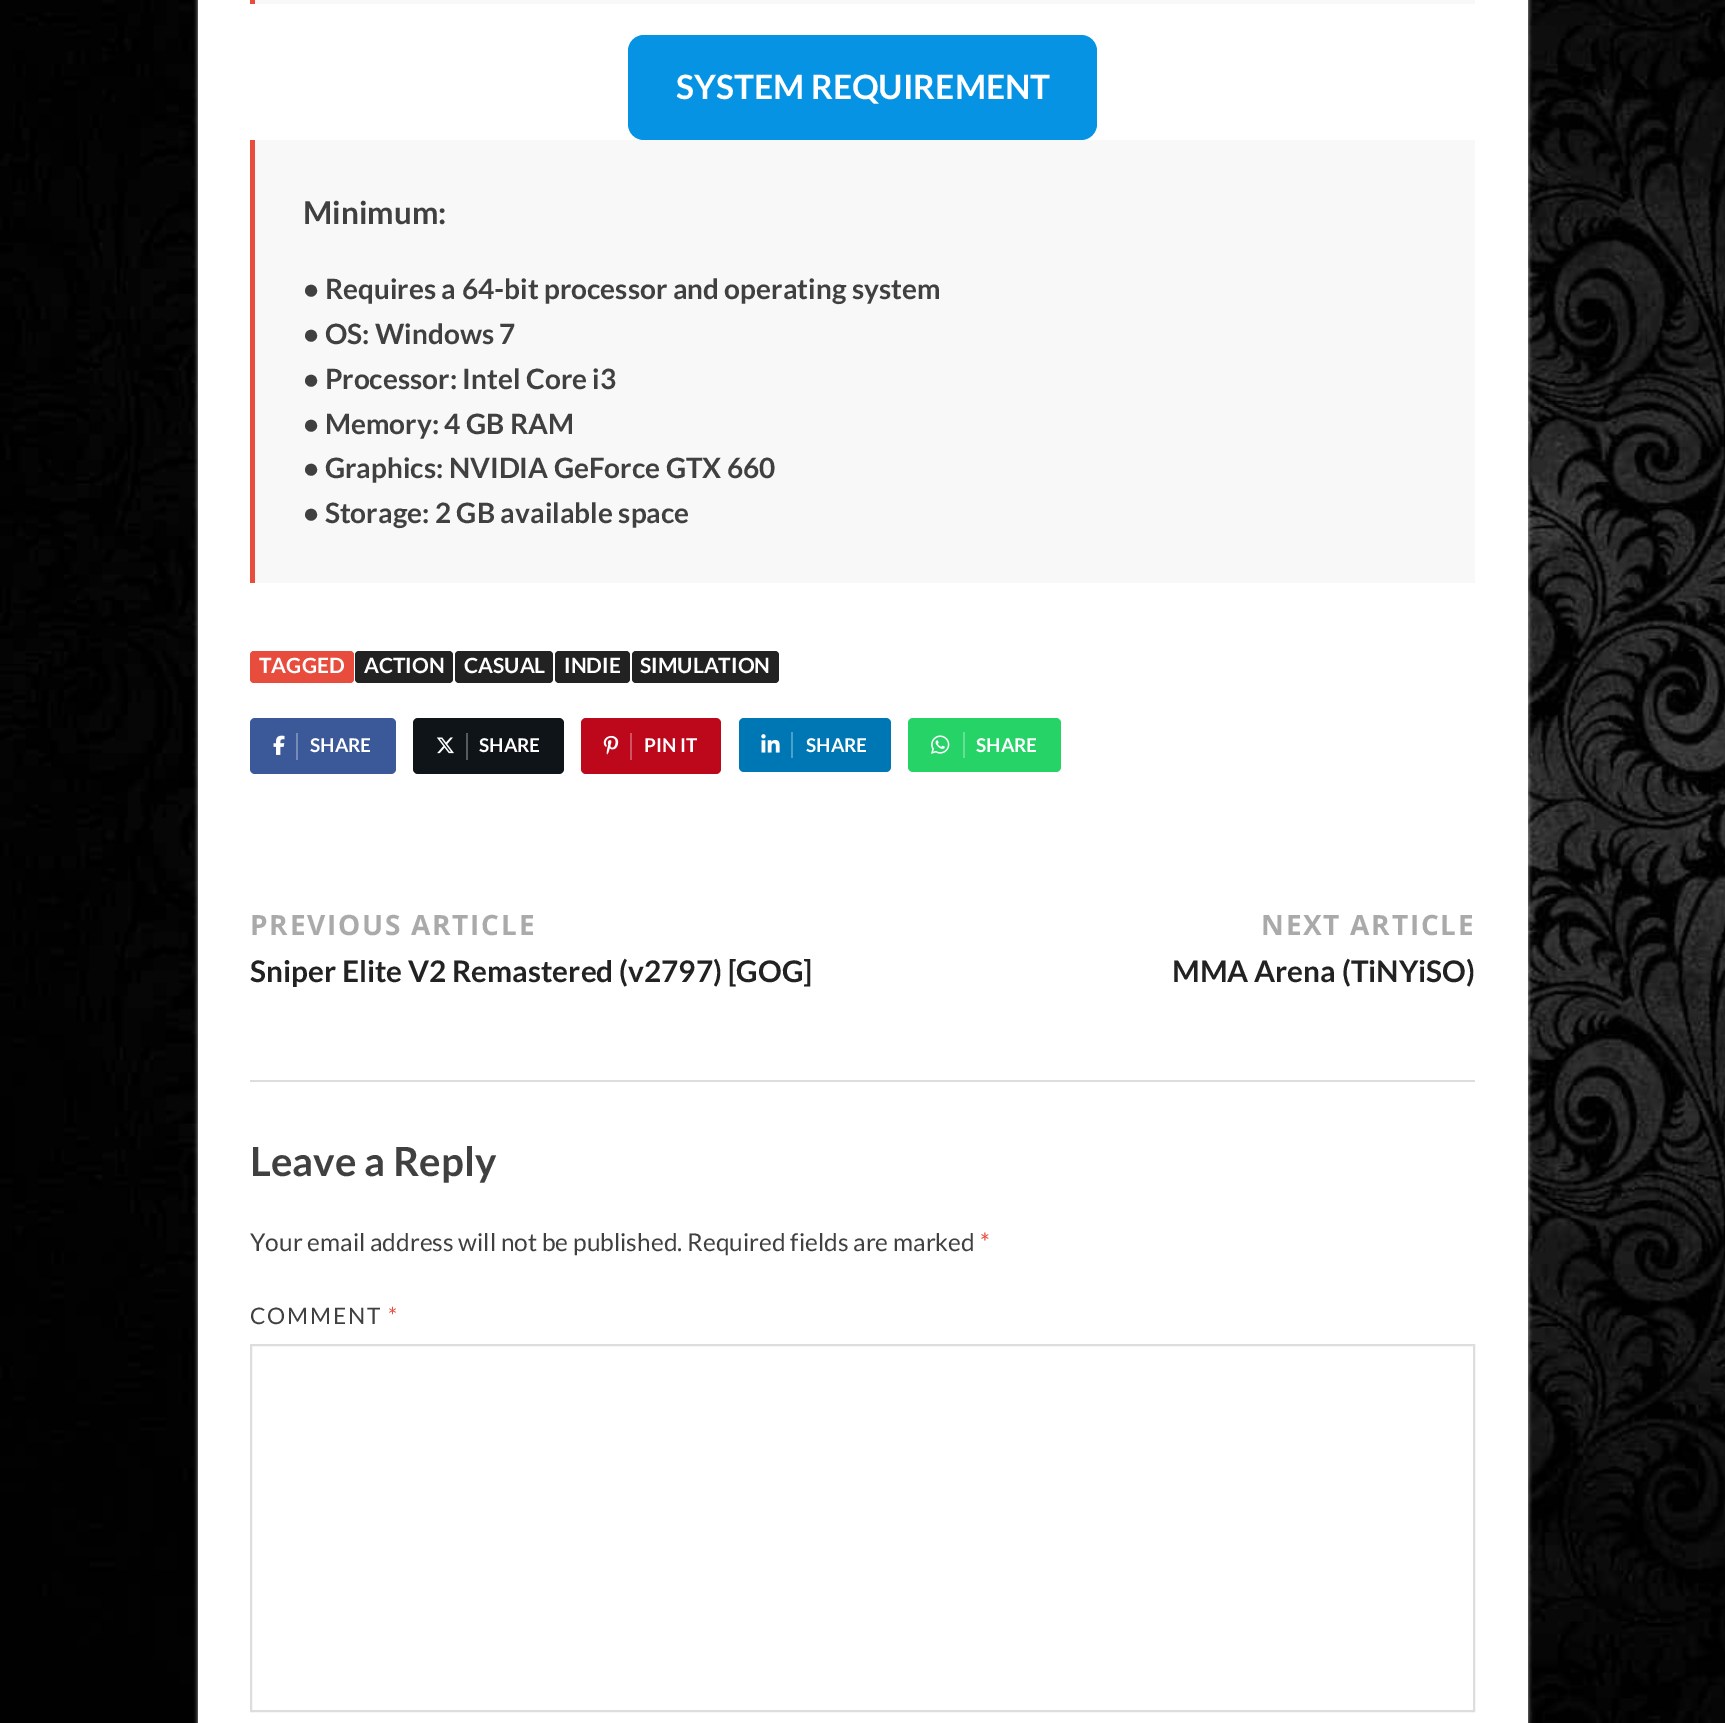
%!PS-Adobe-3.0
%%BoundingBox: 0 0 1725 1723
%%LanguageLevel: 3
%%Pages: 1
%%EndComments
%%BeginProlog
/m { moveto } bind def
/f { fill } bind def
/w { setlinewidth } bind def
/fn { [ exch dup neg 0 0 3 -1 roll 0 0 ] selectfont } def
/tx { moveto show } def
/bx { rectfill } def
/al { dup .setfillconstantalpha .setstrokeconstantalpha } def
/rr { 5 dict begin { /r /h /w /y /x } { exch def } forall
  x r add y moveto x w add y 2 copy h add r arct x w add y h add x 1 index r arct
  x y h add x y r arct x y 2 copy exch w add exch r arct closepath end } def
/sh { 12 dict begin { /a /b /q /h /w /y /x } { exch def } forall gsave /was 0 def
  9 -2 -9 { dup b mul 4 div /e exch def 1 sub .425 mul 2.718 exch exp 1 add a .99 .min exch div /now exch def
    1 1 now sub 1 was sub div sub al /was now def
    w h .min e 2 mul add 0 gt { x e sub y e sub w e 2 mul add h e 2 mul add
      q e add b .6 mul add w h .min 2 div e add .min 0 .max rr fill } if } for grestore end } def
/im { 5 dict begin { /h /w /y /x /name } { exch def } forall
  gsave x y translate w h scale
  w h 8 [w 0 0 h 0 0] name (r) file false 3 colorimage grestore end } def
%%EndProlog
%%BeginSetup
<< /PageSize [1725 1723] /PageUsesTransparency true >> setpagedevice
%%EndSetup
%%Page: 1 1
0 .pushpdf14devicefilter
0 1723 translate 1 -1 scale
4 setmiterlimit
1 setgray
0 0 1725 1723 bx
(image0.raw) 0 0 1725 1723 im
0.733 setgray
198 -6 1330 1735 0 2 1 sh
1 setgray
198 0 1330 1723 bx
0.973 setgray
250 0 1225 4 bx
0.906 0.298 0.235 setrgbcolor
250 0 5 4 bx
0.024 0.576 0.89 setrgbcolor
628 35 469 105 16 rr f
/Lato-Bold 33.5 fn
1 setgray
(SYSTEM REQUIREMENT) 676 99 tx
0.973 setgray
255 140 1220 443 bx
0.906 0.298 0.235 setrgbcolor
250 140 5 443 bx
/Lato-Bold 31.5 fn
0.251 setgray
(Minimum:) 303 224 tx
/Lato-Bold 28 fn
(• Requires a 64-bit processor and operating system) 303 299 tx
(• OS: Windows 7) 303 344 tx
(• Processor: Intel Core i3) 303 389 tx
(• Memory: 4 GB RAM) 303 434 tx
(• Graphics: NVIDIA GeForce GTX 660) 303 478 tx
(• Storage: 2 GB available space) 303 523 tx
0.906 0.298 0.235 setrgbcolor
250 651 104 32 4 rr f
/Lato-Bold 21 fn
1 setgray
(TAGGED) 259 673 tx
0.133 setgray
355 651 98 32 4 rr f
1 setgray
(ACTION) 364 673 tx
0.133 setgray
455 651 98 32 4 rr f
1 setgray
(CASUAL) 464 673 tx
0.133 setgray
555 651 75 32 4 rr f
1 setgray
(INDIE) 564 673 tx
0.133 setgray
632 651 147 32 4 rr f
1 setgray
(SIMULATION) 640 673 tx
0.231 0.349 0.596 setrgbcolor
250 718 146 56 5 rr f
0.463 0.545 0.718 setrgbcolor
296 733 2 27 bx
(image1.raw) 273 735 12 20 im
/Lato-Bold 19 fn
1 setgray
(SHARE) 310 752 tx
0.059 0.078 0.098 setrgbcolor
413 718 151 56 5 rr f
0.341 0.357 0.369 setrgbcolor
466 733 2 27 bx
(image2.raw) 436 737 18 17 im
1 setgray
(SHARE) 479 752 tx
0.741 0.031 0.11 setrgbcolor
581 718 140 56 5 rr f
0.82 0.322 0.376 setrgbcolor
630 733 2 27 bx
(image3.raw) 603 735 16 20 im
1 setgray
(PIN IT) 644 752 tx
0 0.467 0.71 setrgbcolor
739 718 152 54 5 rr f
0.302 0.627 0.796 setrgbcolor
791 732 2 26 bx
(image4.raw) 761 734 19 19 im
1 setgray
(SHARE) 806 752 tx
0.145 0.827 0.4 setrgbcolor
908 718 153 54 5 rr f
0.4 0.878 0.58 setrgbcolor
963 732 2 26 bx
(image5.raw) 931 735 19 19 im
1 setgray
(SHARE) 976 752 tx
/OpenSans-Bold 28 fn
0.667 setgray
250 935 m 1.75 0 (PREVIOUS ARTICLE) ashow
/Lato-Bold 29.75 fn
0.133 setgray
(Sniper Elite V2 Remastered \(v2797\) [GOG]) 250 982 tx
/OpenSans-Bold 28 fn
0.667 setgray
1261 935 m 1.75 0 (NEXT ARTICLE) ashow
/Lato-Bold 29.75 fn
0.133 setgray
(MMA Arena \(TiNYiSO\)) 1172 982 tx
0.867 setgray
250 1080 1225 2 bx
/Lato-Bold 40.25 fn
0.251 setgray
(Leave a Reply) 250 1176 tx
/Lato-Regular 24.5 fn
(Your email address will not be published. Required fields are marked) 250 1251 tx
0.906 0.298 0.235 setrgbcolor
(*) 980 1251 tx
/Lato-Regular 22.75 fn
0.251 setgray
250 1324 m 1.75 0 (COMMENT) ashow
0.906 0.298 0.235 setrgbcolor
388 1324 m 1.75 0 (*) ashow
0.867 setgray
2 w
251 1345 1223 366 rectstroke
.poppdf14devicefilter showpage
%%EOF
